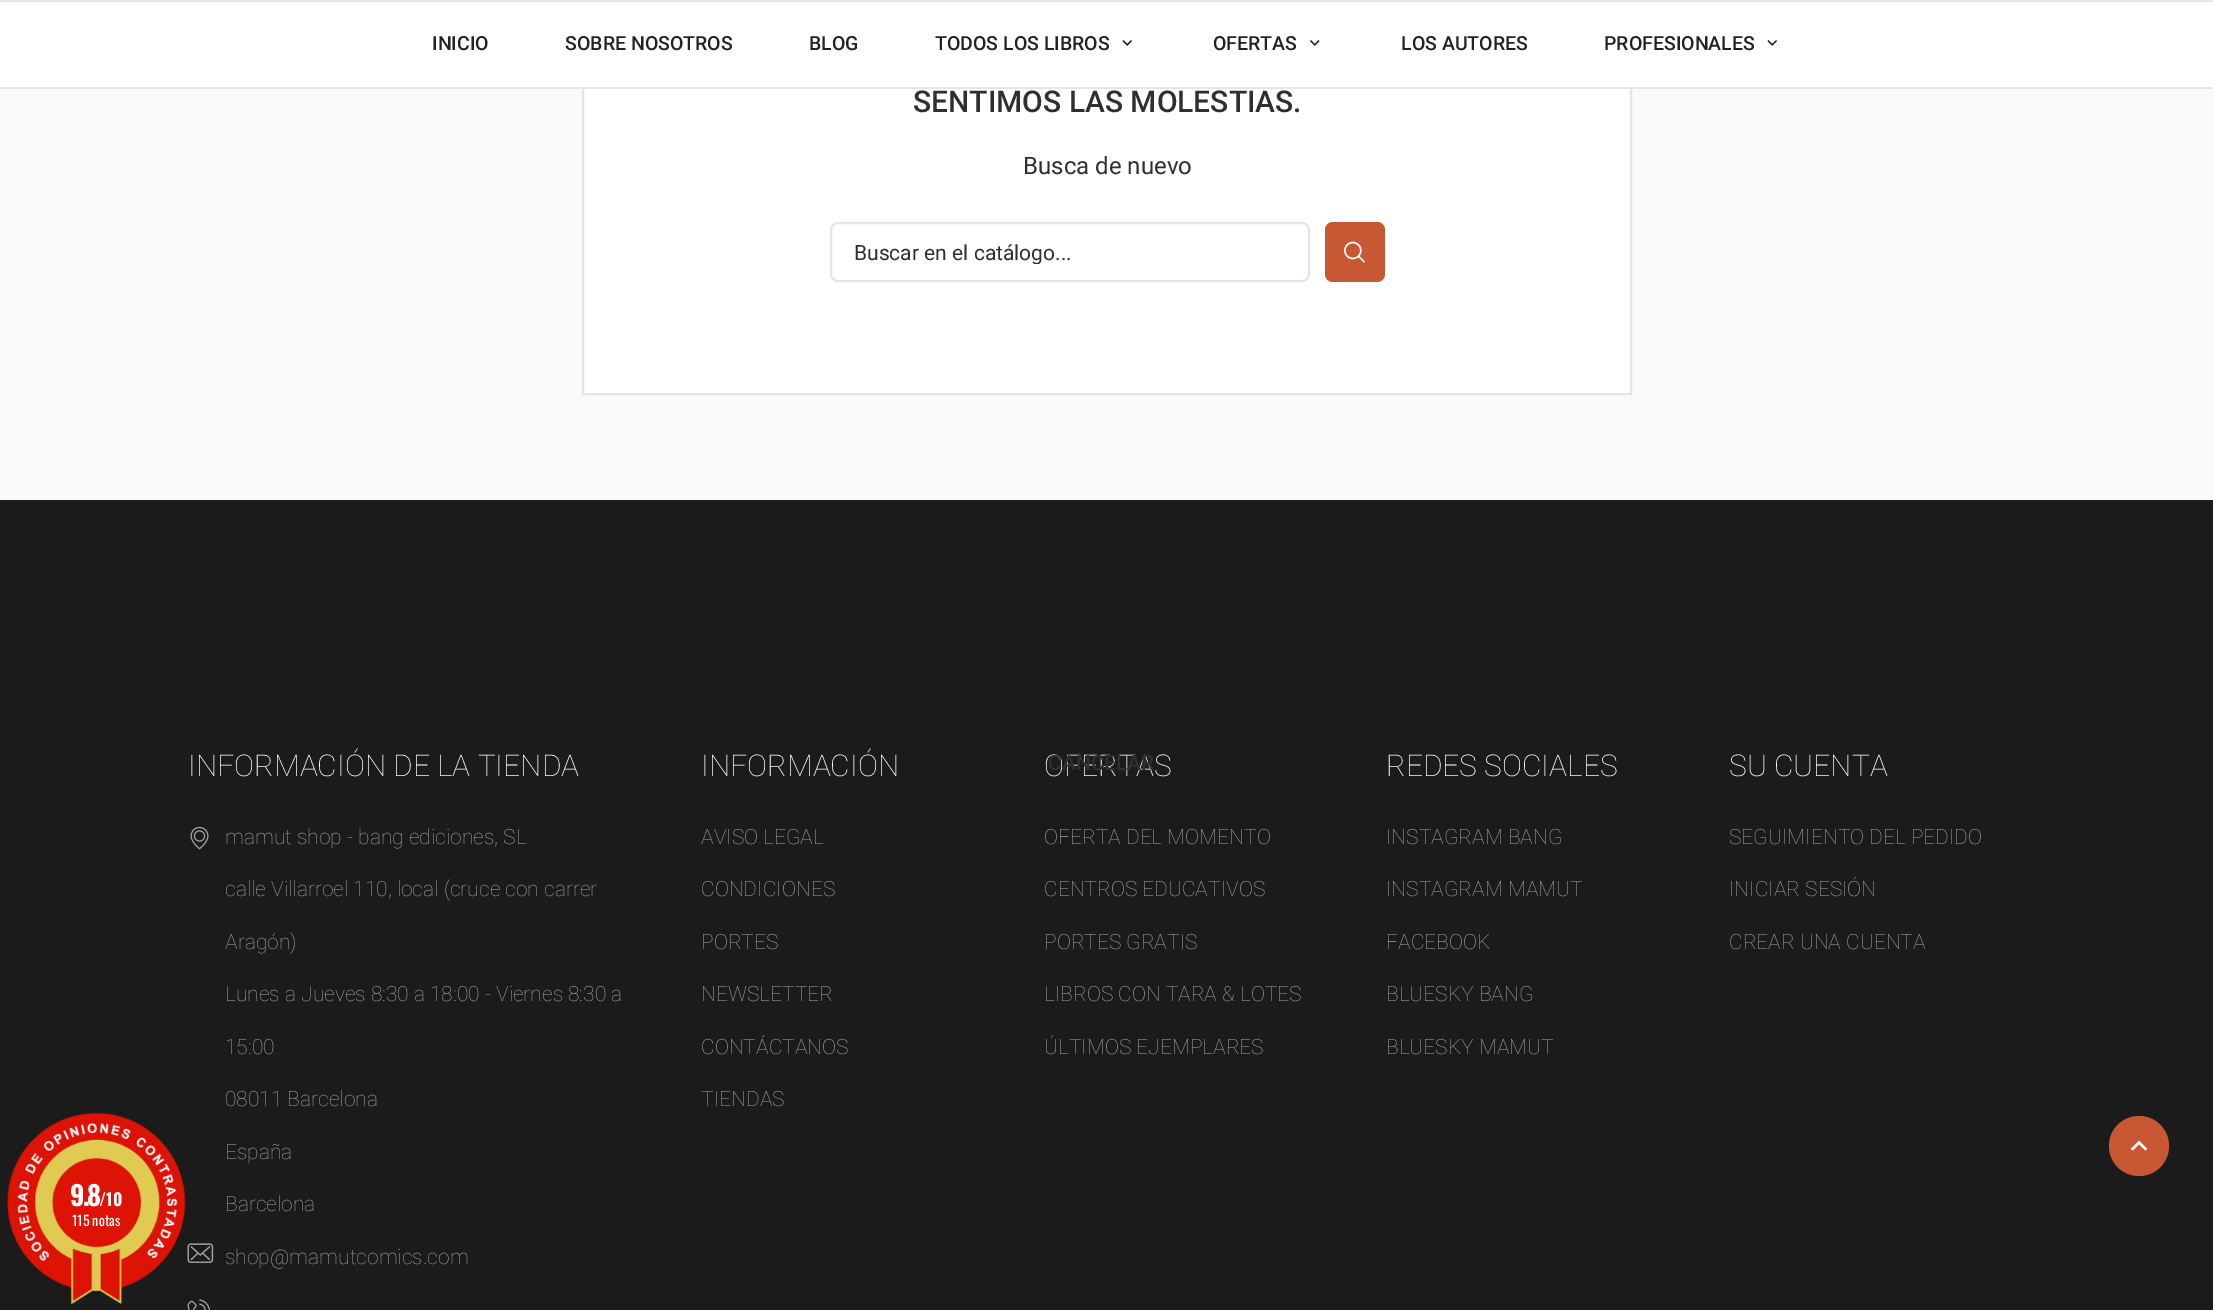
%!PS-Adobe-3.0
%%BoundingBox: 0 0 2213 1310
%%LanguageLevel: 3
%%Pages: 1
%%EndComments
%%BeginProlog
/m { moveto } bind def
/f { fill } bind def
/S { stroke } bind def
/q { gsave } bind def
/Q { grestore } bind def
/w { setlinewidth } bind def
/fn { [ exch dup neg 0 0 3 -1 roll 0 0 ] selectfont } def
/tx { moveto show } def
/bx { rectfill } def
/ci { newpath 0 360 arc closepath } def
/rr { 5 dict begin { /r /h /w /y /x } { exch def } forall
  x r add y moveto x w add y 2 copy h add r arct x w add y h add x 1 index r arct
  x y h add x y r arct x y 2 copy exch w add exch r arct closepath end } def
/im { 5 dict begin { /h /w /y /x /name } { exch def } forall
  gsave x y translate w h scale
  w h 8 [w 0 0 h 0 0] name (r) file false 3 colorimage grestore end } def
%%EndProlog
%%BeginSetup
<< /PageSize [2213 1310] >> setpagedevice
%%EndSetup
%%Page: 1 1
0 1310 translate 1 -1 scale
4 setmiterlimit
0.98 setgray
0 0 2213 1310 bx
0.106 setgray
0 500 2213 810 bx
(image0.raw) 7 1112 179 192 im
/Oswald-Bold 27 fn
1 setgray
70 1206 m -2 0 (9.8) ashow
/Oswald-Bold 17 fn
(/10) 99 1206 tx
/Oswald-Regular 14 fn
(115 notas) 72 1226 tx
584 89 1046 304 bx
0.898 setgray
2 w
583 -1 1048 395 rectstroke
1 setgray
0 2 2213 85 bx
0.898 setgray
0 0 2213 2 bx
0 87 2213 2 bx
/Roboto-Medium 19.5 fn
0.133 setgray
(INICIO) 432 50 tx
(SOBRE NOSOTROS) 565 50 tx
(BLOG) 809 50 tx
(TODOS LOS LIBROS) 935 50 tx
(image1.raw) 1122 40 10 6 im
(OFERTAS) 1213 50 tx
(image2.raw) 1310 40 10 6 im
(LOS AUTORES) 1401 50 tx
(PROFESIONALES) 1604 50 tx
(image1.raw) 1767 40 10 6 im
/Roboto-Medium 30 fn
0.184 setgray
(SENTIMOS LAS MOLESTIAS.) 913 112 tx
/Roboto-Regular 24 fn
(Busca de nuevo) 1023 174 tx
0.898 setgray
831 223 478 58 7 rr S
q
854 240 432 24 rectclip
/Roboto-Regular 21 fn
0.184 setgray
(Buscar en el catálogo...) 854 260 tx
Q
0.784 0.345 0.2 setrgbcolor
1325 222 60 60 8 rr f
(image3.raw) 1344 241 21 22 im
/Roboto-Thin 30 fn
1 setgray
(INFORMACIÓN DE LA TIENDA) 188 776 tx
(image4.raw) 190 826 19 24 im
/Roboto-Thin 21 fn
0.643 setgray
(mamut shop - bang ediciones, SL) 225 844 tx
(calle Villarroel 110, local \(cruce con carrer) 225 896 tx
(Aragón\)) 225 949 tx
(Lunes a Jueves 8:30 a 18:00 - Viernes 8:30 a) 225 1001 tx
(15:00) 225 1054 tx
(08011 Barcelona) 225 1106 tx
(España) 225 1159 tx
(Barcelona) 225 1211 tx
(image5.raw) 187 1243 27 20 im
(shop@mamutcomics.com) 225 1264 tx
(image6.raw) 187 1299 23 11 im
/Roboto-Thin 30 fn
1 setgray
(INFORMACIÓN) 701 776 tx
/Roboto-Thin 21 fn
0.643 setgray
(AVISO LEGAL) 701 844 tx
(CONDICIONES) 701 896 tx
(PORTES) 701 949 tx
(NEWSLETTER) 701 1001 tx
(CONTÁCTANOS) 701 1054 tx
(TIENDAS) 701 1106 tx
/Roboto-Thin 30 fn
1 setgray
(OFERTAS) 1044 776 tx
/Roboto-Thin 21 fn
0.643 setgray
(OFERTA DEL MOMENTO) 1044 844 tx
(CENTROS EDUCATIVOS) 1044 896 tx
(PORTES GRATIS) 1044 949 tx
(LIBROS CON TARA & LOTES) 1044 1001 tx
(ÚLTIMOS EJEMPLARES) 1044 1054 tx
/Roboto-Medium 21 fn
0.184 setgray
(CANCELAR) 1048 770 tx
/Roboto-Thin 30 fn
1 setgray
(REDES SOCIALES) 1386 776 tx
/Roboto-Thin 21 fn
0.643 setgray
(INSTAGRAM BANG) 1386 844 tx
(INSTAGRAM MAMUT) 1386 896 tx
(FACEBOOK) 1386 949 tx
(BLUESKY BANG) 1386 1001 tx
(BLUESKY MAMUT) 1386 1054 tx
/Roboto-Thin 30 fn
1 setgray
(SU CUENTA) 1729 776 tx
/Roboto-Thin 21 fn
0.643 setgray
(SEGUIMIENTO DEL PEDIDO) 1729 844 tx
(INICIAR SESIÓN) 1729 896 tx
(CREAR UNA CUENTA) 1729 949 tx
0.784 0.345 0.2 setrgbcolor
2139 1146 30 ci f
(image7.raw) 2130 1140 18 11 im
showpage
%%EOF
